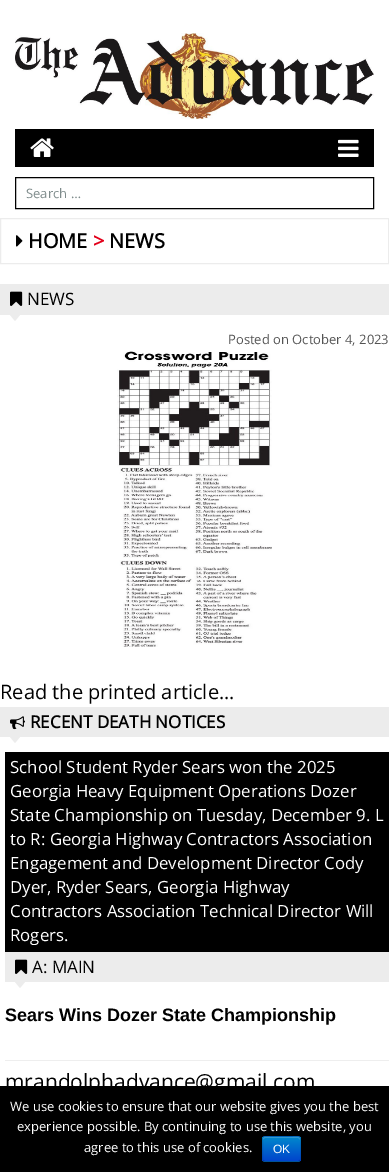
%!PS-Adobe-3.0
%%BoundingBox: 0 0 389 1172
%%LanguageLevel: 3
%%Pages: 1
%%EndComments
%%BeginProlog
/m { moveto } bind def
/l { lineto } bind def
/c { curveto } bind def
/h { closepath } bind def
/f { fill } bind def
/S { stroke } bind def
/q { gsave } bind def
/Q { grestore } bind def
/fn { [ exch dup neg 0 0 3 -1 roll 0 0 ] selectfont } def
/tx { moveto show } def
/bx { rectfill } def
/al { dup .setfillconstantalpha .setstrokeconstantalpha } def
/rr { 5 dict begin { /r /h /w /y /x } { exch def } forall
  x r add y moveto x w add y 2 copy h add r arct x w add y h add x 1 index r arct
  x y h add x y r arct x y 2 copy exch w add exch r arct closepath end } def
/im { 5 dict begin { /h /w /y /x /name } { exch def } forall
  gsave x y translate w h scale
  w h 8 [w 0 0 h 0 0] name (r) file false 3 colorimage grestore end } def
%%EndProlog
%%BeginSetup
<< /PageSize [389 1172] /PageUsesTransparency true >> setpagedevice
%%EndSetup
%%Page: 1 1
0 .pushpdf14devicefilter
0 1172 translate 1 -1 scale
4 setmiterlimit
1 setgray
0 0 389 1172 bx
(image0.raw) 15 33 359 86 im
0 setgray
15 129 359 38 bx
(image1.raw) 30 138 24 19 im
(image2.raw) 338 139 21 18 im
15.5 177.5 358 31 rectstroke
/OpenSans-Regular 13 fn
0.498 0.549 0.549 setrgbcolor
(Search …) 26 198 tx
0.925 setgray
0.5 218.5 388 45 rectstroke
(image3.raw) 16 235 7 12 im
/OpenSans-Bold 20 fn
0 setgray
(HOME) 28 248 tx
0.886 0 0.102 setrgbcolor
(>) 93 248 tx
0 setgray
(NEWS) 109 248 tx
0.925 setgray
0 284 389 31 bx
(image4.raw) 10 291 13 15 im
/OpenSans-Regular 17 fn
0 setgray
(NEWS) 27 305 tx
0.925 setgray
10 315 m 20 315 l 15 321 l h f
/OpenSans-Regular 13 fn
0.329 setgray
(Posted on October 4, 2023) 228 344 tx
(image5.raw) 117 351 155 296 im
/OpenSans-Regular 20 fn
0 setgray
(Read the printed article...) 0 699 tx
0.925 setgray
0 707 389 30 bx
(image6.raw) 10 716 15 14 im
/OpenSans-Bold 17 fn
0 setgray
(RECENT DEATH NOTICES) 30 728 tx
0.925 setgray
10 737 m 20 737 l 15 743 l h f
0 setgray
5 752 384 200 bx
/OpenSans-Regular 16.8 fn
1 setgray
(School Student Ryder Sears won the 2025) 10 773 tx
(Georgia Heavy Equipment Operations Dozer) 10 797 tx
(State Championship on Tuesday, December 9. L) 10 821 tx
(to R: Georgia Highway Contractors Association) 10 845 tx
(Engagement and Development Director Cody) 10 869 tx
(Dyer, Ryder Sears, Georgia Highway) 10 893 tx
(Contractors Association Technical Director Will) 10 917 tx
(Rogers.) 10 941 tx
0.925 setgray
5 952 384 30 bx
(image4.raw) 15 959 13 15 im
/OpenSans-Regular 17 fn
0 setgray
(A: MAIN) 32 973 tx
0.925 setgray
15 982 m 25 982 l 20 988 l h f
/LiberationSans-Bold 18 fn
0 setgray
(Sears Wins Dozer State Championship) 5 1021 tx
0.933 setgray
5 1060 384 1 bx
/OpenSans-Regular 21 fn
0 setgray
(mrandolphadvance@gmail.com) 5 1089 tx
0 1086 389 86 bx
/OpenSans-Regular 13 fn
1 setgray
(We use cookies to ensure that our website gives you the best) 10 1111 tx
(experience possible. By continuing to use this website, you) 17 1131 tx
(agree to this use of cookies.) 84 1152 tx
0 0.427 0.8 setrgbcolor
262 1136 39 26 3 rr f
q
262 1136 39 26 3 rr clip newpath
q 262 1137 m 301 1137 l 301 1161 l 262 1161 l h clip newpath
<< /ShadingType 2 /ColorSpace /DeviceRGB /Coords [282 1137 282 1161] /Extend [true true] /Function << /FunctionType 2 /Domain [0 1] /C0 [0 0.533 0.8] /C1 [0 0.267 0.8] /N 1 >> >> shfill Q
Q
0.2 al
1 setgray
265 1138 m 298 1138 l 299 1138 300 1139 300 1140 c 300 1135.5 296.5 1137 292.5 1137 c 270.5 1137 l 266.5 1137 263 1135.5 263 1140 c 263 1139 264 1138 265 1138 c h f
0.25 al
0 setgray
300 1161 m 299.5 1161 298.5 1161.5 298 1161.5 c 265 1161.5 l 264.5 1161.5 263.5 1161 263 1161 c S
0.1 al
263 1161 m 263 1160.5 262.5 1159.5 262.5 1159 c 262.5 1139 l 262.5 1138.5 263 1137.5 263 1137 c 263.5 1137 264.5 1136.5 265 1136.5 c 298 1136.5 l 298.5 1136.5 299.5 1137 300 1137 c 300 1137.5 300.5 1138.5 300.5 1139 c 300.5 1159 l 300.5 1159.5 300 1160.5 300 1161 c S
/LiberationSans-Regular 12 fn
1 al
1 setgray
(OK) 273 1153 tx
.poppdf14devicefilter showpage
%%EOF
